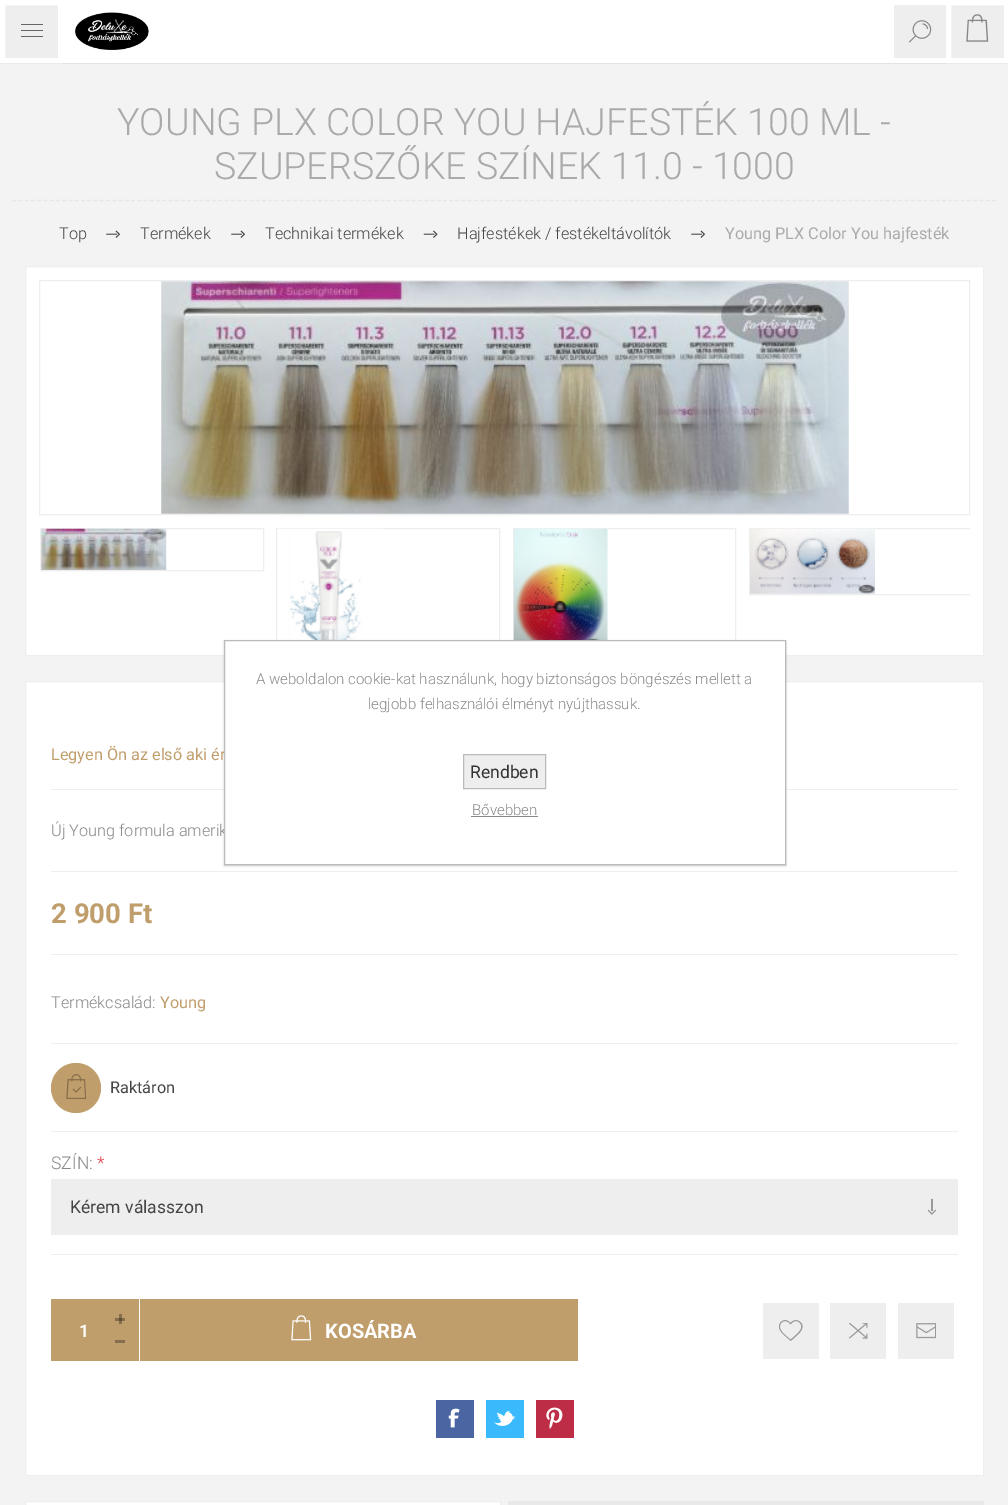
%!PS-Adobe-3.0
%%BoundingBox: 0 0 1008 1505
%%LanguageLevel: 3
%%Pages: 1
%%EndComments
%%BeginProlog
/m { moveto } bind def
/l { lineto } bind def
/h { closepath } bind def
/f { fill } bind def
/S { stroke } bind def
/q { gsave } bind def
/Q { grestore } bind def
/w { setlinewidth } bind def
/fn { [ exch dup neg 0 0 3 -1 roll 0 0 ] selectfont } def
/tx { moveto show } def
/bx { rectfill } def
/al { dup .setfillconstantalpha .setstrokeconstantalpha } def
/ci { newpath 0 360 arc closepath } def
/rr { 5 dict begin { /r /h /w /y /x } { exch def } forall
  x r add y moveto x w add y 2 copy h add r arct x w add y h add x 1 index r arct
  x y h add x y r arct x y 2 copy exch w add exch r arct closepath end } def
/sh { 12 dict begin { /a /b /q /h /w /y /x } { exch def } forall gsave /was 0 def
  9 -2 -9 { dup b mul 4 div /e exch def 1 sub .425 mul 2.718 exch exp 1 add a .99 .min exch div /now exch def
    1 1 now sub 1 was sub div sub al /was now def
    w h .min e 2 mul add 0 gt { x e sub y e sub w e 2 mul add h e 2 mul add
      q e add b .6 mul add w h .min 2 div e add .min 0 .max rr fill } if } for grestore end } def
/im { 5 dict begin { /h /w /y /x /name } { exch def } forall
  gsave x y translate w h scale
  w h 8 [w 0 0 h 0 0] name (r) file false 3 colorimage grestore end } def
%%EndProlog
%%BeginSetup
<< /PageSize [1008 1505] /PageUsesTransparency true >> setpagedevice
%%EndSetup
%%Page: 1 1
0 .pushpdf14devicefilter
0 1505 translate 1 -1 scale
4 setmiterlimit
0.953 setgray
0 0 1008 1505 bx
0.89 setgray
0 62 m 0 64 l 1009 64 l 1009 1 l 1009 62 l h f
1 setgray
63 0 883 63 bx
(image0.raw) 75 12 74 38 im
0.933 setgray
894 5 52 53 bx
(image1.raw) 908 20 24 23 im
2.5 2.5 m 60.5 2.5 l 60.5 60.5 l 2.5 60.5 l h q f Q
1 setgray
5 w
S
0.4 setgray
21 24 22 1 bx
21 30 22 1 bx
21 36 22 1 bx
0.933 setgray
948.5 2.5 m 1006.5 2.5 l 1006.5 60.5 l 948.5 60.5 l h q f Q
1 setgray
S
(image2.raw) 966 14 23 28 im
0.902 setgray
1.2 w
[3.75 2.49] 0 setdash
12.5 200.5 m 996 200.5 l S
/Roboto-Light 37.5 fn
0.667 setgray
(YOUNG PLX COLOR YOU HAJFESTÉK 100 ML -) 117 135 tx
(SZUPERSZŐKE SZÍNEK 11.0 - 1000) 214 179 tx
/Roboto-Light 16.25 fn
0.267 setgray
(Top) 59 239 tx
(image3.raw) 106 230 15 8 im
(Termékek) 140 239 tx
(image3.raw) 231 230 15 8 im
(Technikai termékek) 265 239 tx
(image4.raw) 423 230 15 8 im
(Hajfestékek / festékeltávolítók) 457 239 tx
(image3.raw) 691 230 15 8 im
/Roboto-Regular 16.25 fn
0.667 setgray
(Young PLX Color You hajfesték) 725 239 tx
1 setgray
25.5 266.5 m 983.5 266.5 l 983.5 655.5 l 25.5 655.5 l h q f Q
0.933 setgray
1 w
[] 0 setdash
S
39.5 280.5 930 234 rectstroke
(image5.raw) 161 281 688 233 im
40.5 528.5 223 42 rectstroke
(image6.raw) 41 528 126 42 im
276.5 528.5 223 126 rectstroke
(image7.raw) 278 528 105 112 im
513.5 528.5 222 126 rectstroke
(image8.raw) 513 528 95 112 im
q
39 528 931 127 rectclip
749.5 528.5 223 66 rectstroke
Q
(image9.raw) 750 528 125 66 im
1 setgray
25.5 681.5 m 983.5 681.5 l 983.5 1475.5 l 25.5 1475.5 l h q f Q
0.933 setgray
S
51 789 907 1 bx
0.753 0.62 0.424 setrgbcolor
(Legyen Ön az első aki ér) 51 760 tx
0.933 setgray
51 871 907 1 bx
/Roboto-Light 16.25 fn
0.533 setgray
(Új Young formula amerik) 51 836 tx
0.933 setgray
51 954 907 1 bx
/Roboto-Bold 27.5 fn
0.753 0.62 0.424 setrgbcolor
(2 900 Ft) 51 923 tx
0.933 setgray
51 1043 907 1 bx
/Roboto-Light 16.25 fn
0.533 setgray
(Termékcsalád:) 51 1008 tx
/Roboto-Regular 16.25 fn
0.753 0.62 0.424 setrgbcolor
(Young) 160 1008 tx
0.933 setgray
51 1131 907 1 bx
0.753 0.62 0.424 setrgbcolor
76 1088 25 ci f
(image10.raw) 66 1074 21 25 im
0.267 setgray
(Raktáron) 110 1093 tx
0.933 setgray
51 1254 907 1 bx
/Roboto-Light 17.5 fn
0.533 setgray
(SZÍN:) 51 1169 tx
0.867 0.275 0.302 setrgbcolor
(*) 97 1169 tx
0.933 setgray
51 1179 907 56 bx
(image11.raw) 928 1199 8 16 im
/Roboto-Regular 17.5 fn
0.267 setgray
(Kérem válasszon) 70 1213 tx
0.753 0.62 0.424 setrgbcolor
51 1299 50 62 bx
/Roboto-Bold 17.5 fn
1 setgray
(1) 79 1337 tx
0.753 0.62 0.424 setrgbcolor
101 1299 38 62 bx
0.525 0.435 0.298 setrgbcolor
119 1314 3 10 bx
115 1318 10 3 bx
0.369 0.306 0.208 setrgbcolor
119 1318 3 3 bx
0.525 0.435 0.298 setrgbcolor
115 1340 10 3 bx
0.753 0.62 0.424 setrgbcolor
140 1299 438 62 bx
(image12.raw) 291 1315 21 26 im
/Roboto-Bold 20 fn
1 setgray
(KOSÁRBA) 325 1338 tx
0.933 setgray
763 1303 56 56 bx
(image13.raw) 779 1320 24 21 im
830 1303 56 56 bx
(image14.raw) 849 1323 19 16 im
898 1303 56 56 bx
(image15.raw) 916 1323 20 16 im
0.29 0.396 0.635 setrgbcolor
436 1400 38 38 bx
(image16.raw) 448 1408 12 20 im
0.227 0.729 0.992 setrgbcolor
486 1400 38 38 bx
(image17.raw) 494 1411 22 15 im
0.741 0.176 0.271 setrgbcolor
536 1400 38 38 bx
(image18.raw) 546 1407 17 22 im
1 setgray
25.5 1501.5 m 500.5 1501.5 l 500.5 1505.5 l 25.5 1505.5 l h q f Q
0.933 setgray
S
0.914 setgray
508 1501 476 4 bx
0 setgray
224 641 562 225 0 1 0.2 sh
1 setgray
224.5 640.5 m 785.5 640.5 l 785.5 864.5 l 224.5 864.5 l h q f Q
0.733 setgray
S
/Roboto-Light 15 fn
0.533 setgray
(A weboldalon cookie-kat használunk, hogy biztonságos böngészés mellett a) 256 684 tx
(legjobb felhasználói élményt nyújthassuk.) 368 709 tx
0.933 setgray
463.5 754.5 m 545.5 754.5 l 545.5 788.5 l 463.5 788.5 l h q f Q
0.733 setgray
S
/Roboto-Regular 17.5 fn
0.2 setgray
(Rendben) 470 778 tx
/Roboto-Light 15 fn
0.533 setgray
(Bővebben) 472 815 tx
471 816 67 1 bx
.poppdf14devicefilter showpage
%%EOF
